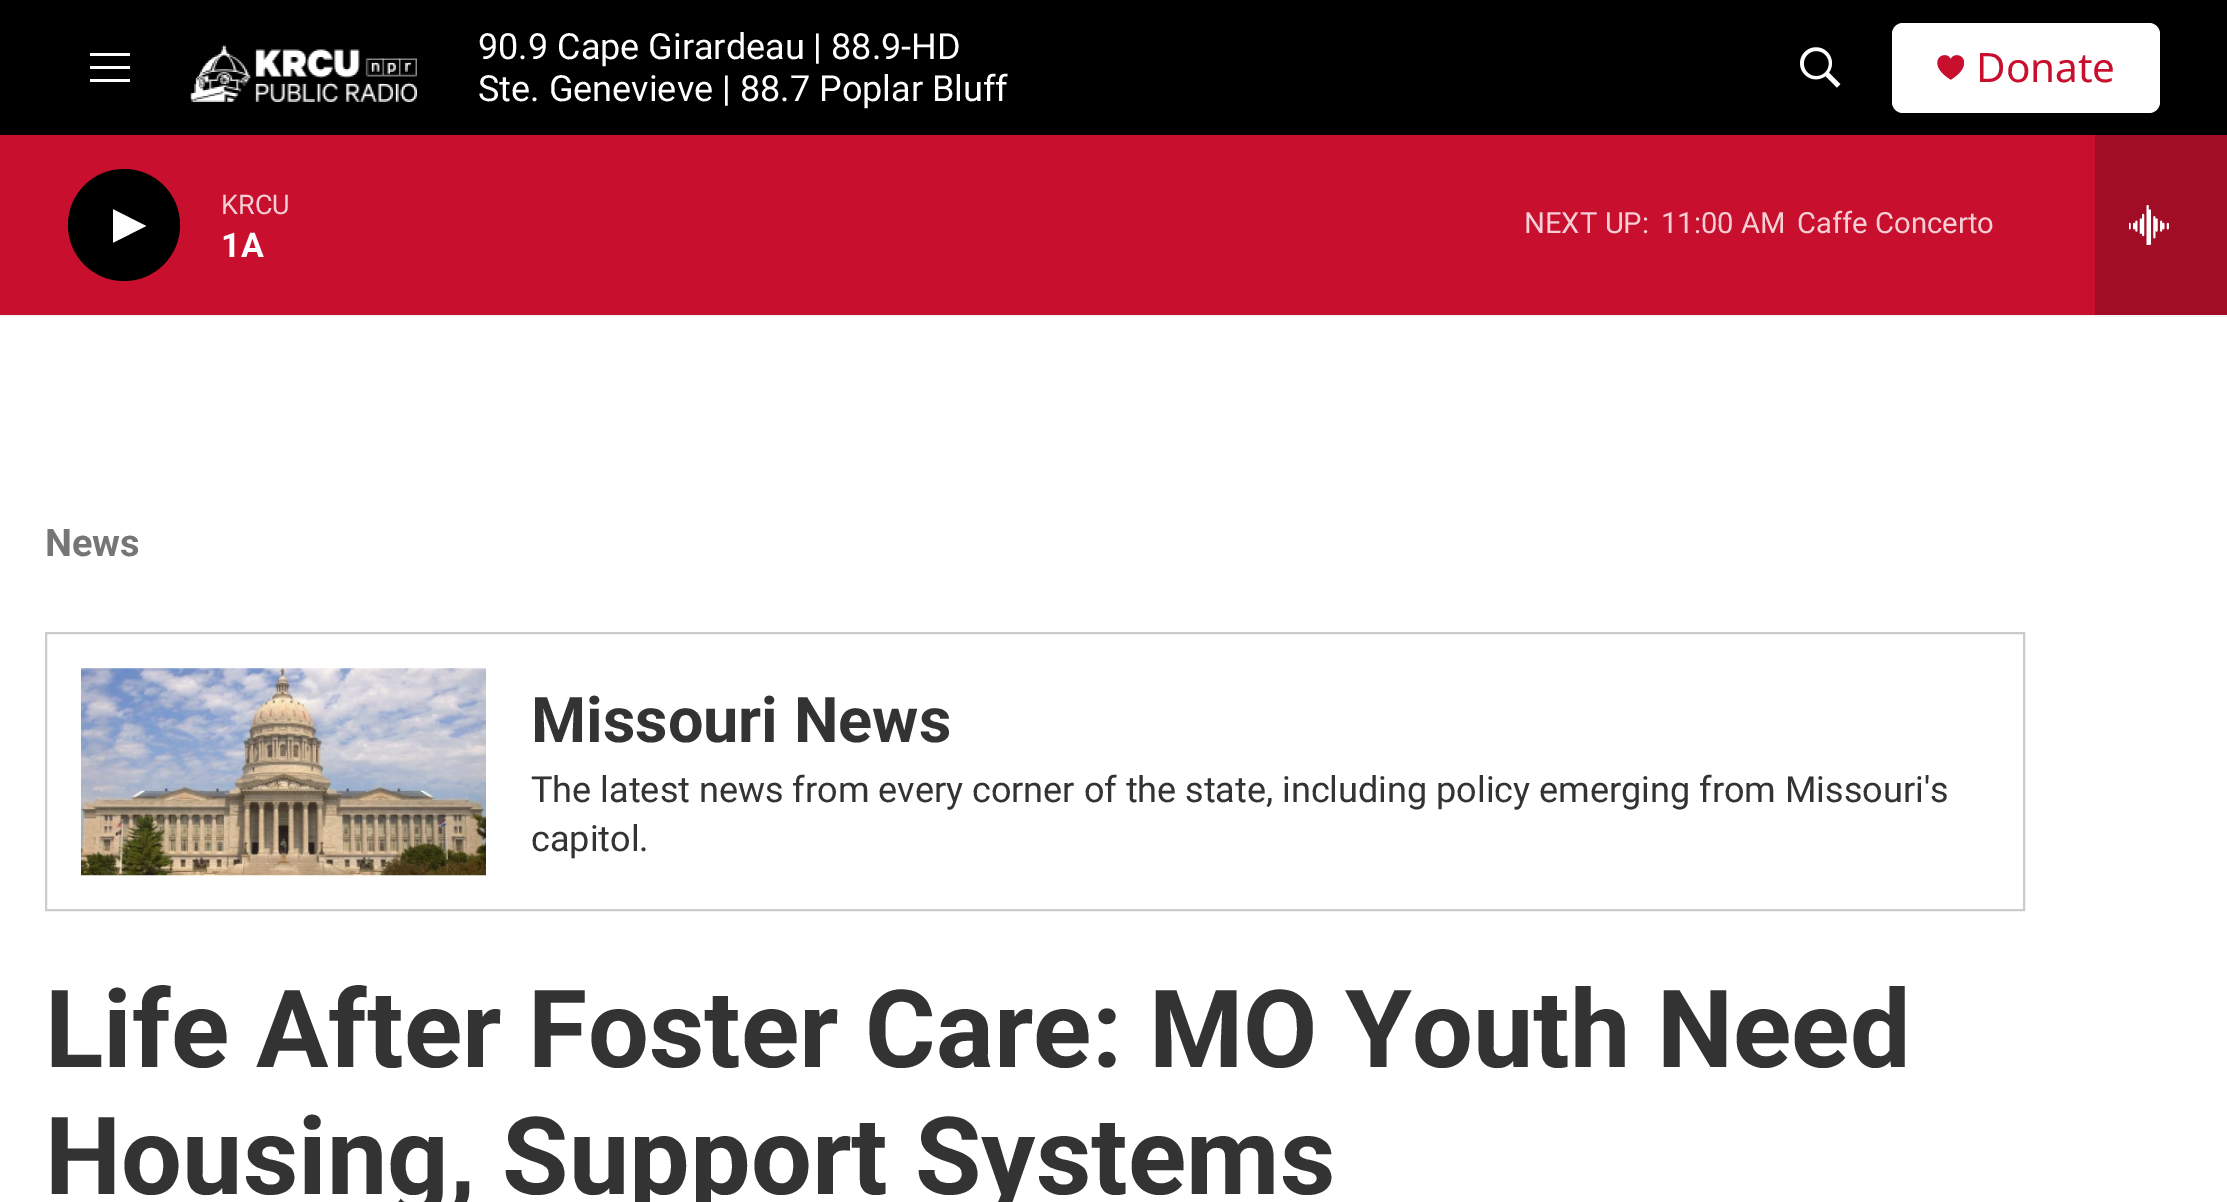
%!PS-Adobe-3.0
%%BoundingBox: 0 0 2227 1202
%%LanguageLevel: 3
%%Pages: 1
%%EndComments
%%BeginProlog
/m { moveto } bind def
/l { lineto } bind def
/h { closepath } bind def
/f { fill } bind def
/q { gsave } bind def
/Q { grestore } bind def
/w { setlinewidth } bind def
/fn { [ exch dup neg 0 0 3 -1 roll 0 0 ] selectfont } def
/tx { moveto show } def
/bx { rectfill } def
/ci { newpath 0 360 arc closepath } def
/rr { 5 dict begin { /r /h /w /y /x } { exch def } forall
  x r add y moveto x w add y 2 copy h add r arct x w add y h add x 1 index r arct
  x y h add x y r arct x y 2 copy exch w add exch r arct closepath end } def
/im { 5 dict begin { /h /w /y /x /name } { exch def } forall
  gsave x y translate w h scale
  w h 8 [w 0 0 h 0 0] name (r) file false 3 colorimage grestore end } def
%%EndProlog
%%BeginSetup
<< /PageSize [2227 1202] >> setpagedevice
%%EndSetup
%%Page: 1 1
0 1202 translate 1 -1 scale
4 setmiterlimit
1 setgray
0 0 2227 1202 bx
0 setgray
0 0 2227 135 bx
0.961 setgray
0 315 2227 2 bx
1 setgray
90 69 m 90 66 l 130 66 l 130 69 l h 90 56 m 90 53 l 130 53 l 130 56 l h 90 82 m 90 79 l 130 79 l 130 82 l h eofill
(image0.raw) 190 45 228 57 im
/Roboto-Regular 36 fn
(90.9 Cape Girardeau | 88.9-HD) 478 59 tx
(Ste. Genevieve | 88.7 Poplar Bluff) 478 101 tx
(image1.raw) 1800 47 41 41 im
1892 23 268 90 11 rr f
(image2.raw) 1937 55 27 25 im
/NotoSans-Regular 40.5 fn
0.784 0.063 0.18 setrgbcolor
(Donate) 1976 82 tx
0 135 2095 180 bx
0 setgray
124 225 56 ci f
q
113 205 33 43 rectclip
1 setgray
112.5 209 m 146 226 l 112.5 243 l h f
Q
/Roboto-Regular 27 fn
0.957 0.812 0.835 setrgbcolor
(KRCU) 221 214 tx
/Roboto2-Bold 34 fn
1 setgray
(1A) 221 257 tx
/Roboto-Regular 29.25 fn
0.957 0.812 0.835 setrgbcolor
(NEXT UP:) 1524 233 tx
(11:00 AM) 1661 233 tx
(Caffe Concerto) 1797 233 tx
0.627 0.051 0.145 setrgbcolor
2095 135 132 180 bx
(image3.raw) 2129 205 40 40 im
/Roboto-Bold 38 fn
0.463 setgray
(News) 45 556 tx
0.8 setgray
2 w
46 633 1978 277 rectstroke
(image4.raw) 81 668 405 208 im
/Roboto2-Bold 63 fn
0.2 setgray
(Missouri News) 531 742 tx
/Roboto-Regular 36 fn
(The latest news from every corner of the state, including policy emerging from Missouri's) 531 802 tx
(capitol.) 531 851 tx
/Roboto-Bold 108 fn
(Life After Foster Care: MO Youth Need) 45 1067 tx
(Housing, Support Systems) 45 1194 tx
showpage
%%EOF
